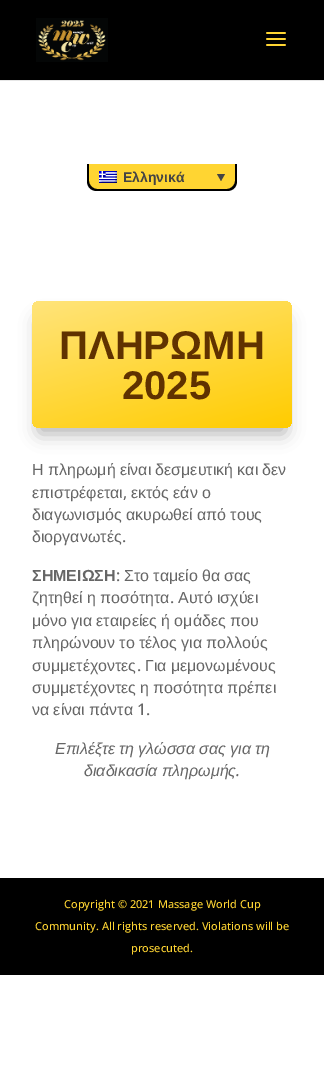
%!PS-Adobe-3.0
%%BoundingBox: 0 0 324 1068
%%LanguageLevel: 3
%%Pages: 1
%%EndComments
%%BeginProlog
/m { moveto } bind def
/l { lineto } bind def
/c { curveto } bind def
/h { closepath } bind def
/f { fill } bind def
/q { gsave } bind def
/Q { grestore } bind def
/fn { [ exch dup neg 0 0 3 -1 roll 0 0 ] selectfont } def
/tx { moveto show } def
/bx { rectfill } def
/al { dup .setfillconstantalpha .setstrokeconstantalpha } def
/rr { 5 dict begin { /r /h /w /y /x } { exch def } forall
  x r add y moveto x w add y 2 copy h add r arct x w add y h add x 1 index r arct
  x y h add x y r arct x y 2 copy exch w add exch r arct closepath end } def
/sh { 12 dict begin { /a /b /q /h /w /y /x } { exch def } forall gsave /was 0 def
  9 -2 -9 { dup b mul 4 div /e exch def 1 sub .425 mul 2.718 exch exp 1 add a .99 .min exch div /now exch def
    1 1 now sub 1 was sub div sub al /was now def
    w h .min e 2 mul add 0 gt { x e sub y e sub w e 2 mul add h e 2 mul add
      q e add b .6 mul add w h .min 2 div e add .min 0 .max rr fill } if } for grestore end } def
/im { 5 dict begin { /h /w /y /x /name } { exch def } forall
  gsave x y translate w h scale
  w h 8 [w 0 0 h 0 0] name (r) file false 3 colorimage grestore end } def
%%EndProlog
%%BeginSetup
<< /PageSize [324 1068] /PageUsesTransparency true >> setpagedevice
%%EndSetup
%%Page: 1 1
0 .pushpdf14devicefilter
0 1068 translate 1 -1 scale
4 setmiterlimit
1 setgray
0 0 324 1068 bx
0.902 setgray
0 80 324 1 bx
0 setgray
0 0 324 80 bx
(image0.raw) 36 18 72 44 im
(image1.raw) 266 32 20 14 im
1 0.835 0.196 setrgbcolor
89 164 m 235 164 l 235 181 l 235 185.5 231.5 189 227 189 c 97 189 l 92.5 189 89 185.5 89 181 c h f
0 setgray
87 164 m 237 164 l 237 181 l 237 187 233 191 227 191 c 97 191 l 91 191 87 187 87 181 c h 89 164 m 235 164 l 235 181 l 235 185 231 189 227 189 c 97 189 l 93 189 89 185 89 181 c h eofill
(image2.raw) 99 171 18 12 im
/LiberationSans-Bold 14 fn
0.267 setgray
(Ελληνικά) 123 182 tx
217 174 m 225 174 l 221 181 l h f
0 setgray
38 319 248 115 2 9 0.3 sh
q 32 301 260 127 8 rr clip newpath
<< /ShadingType 2 /ColorSpace /DeviceRGB /Coords [137 273 187 456] /Extend [true true] /Function << /FunctionType 2 /Domain [0 1] /C0 [1 0.894 0.478] /C1 [1 0.8 0] /N 1 >> >> shfill Q
/LiberationSans-Bold 40 fn
0.376 0.196 0 setrgbcolor
(ΠΛΗΡΩΜΗ) 59 359 tx
(2025) 122 399 tx
/LiberationSans-Regular 16 fn
0.4 setgray
32 475 m -0.25 0 32 (Η πληρωμή είναι δεσμευτική και δεν) widthshow
(επιστρέφεται) 32 498 tx
/OpenSans-Medium 16 fn
(,) 123 498 tx
/LiberationSans-Regular 16 fn
131 498 m -0.25 0 32 (εκτός εάν ο) widthshow
32 520 m -0.25 0 32 (διαγωνισμός ακυρωθεί από τους) widthshow
(διοργανωτές) 32 542 tx
/OpenSans-Medium 16 fn
(.) 122 542 tx
/LiberationSans-Bold 16 fn
(ΣΗΜΕΙΩΣΗ) 32 581 tx
/OpenSans-Medium 16 fn
(:) 116 581 tx
/LiberationSans-Regular 16 fn
124 581 m -0.25 0 32 (Στο ταμείο θα σας) widthshow
32 603 m -0.25 0 32 (ζητηθεί η ποσότητα) widthshow
/OpenSans-Medium 16 fn
(.) 170 603 tx
/LiberationSans-Regular 16 fn
178 603 m -0.25 0 32 (Αυτό ισχύει) widthshow
32 626 m -0.25 0 32 (μόνο για εταιρείες ή ομάδες που) widthshow
32 648 m -0.25 0 32 (πληρώνουν το τέλος για πολλούς) widthshow
(συμμετέχοντες) 32 671 tx
/OpenSans-Medium 16 fn
(.) 137 671 tx
/LiberationSans-Regular 16 fn
145 671 m -0.25 0 32 (Για μεμονωμένους) widthshow
32 693 m -0.25 0 32 (συμμετέχοντες η ποσότητα πρέπει) widthshow
32 715 m -0.25 0 32 (να είναι πάντα) widthshow
/OpenSans-Medium 16 fn
(1.) 137 715 tx
/LiberationSans-Italic 16 fn
55 754 m -0.25 0 32 (Επιλέξτε τη γλώσσα σας για τη) widthshow
84 776 m -0.25 0 32 (διαδικασία πληρωμής) widthshow
/OpenSans-MediumItalic 16 fn
(.) 236 776 tx
0 setgray
0 878 324 97 bx
/OpenSans-Medium 11 fn
1 0.835 0.196 setrgbcolor
(Copyright © 2021 Massage World Cup) 64 908 tx
(Community. All rights reserved. Violations will be) 35 930 tx
(prosecuted.) 131 952 tx
.poppdf14devicefilter showpage
%%EOF
